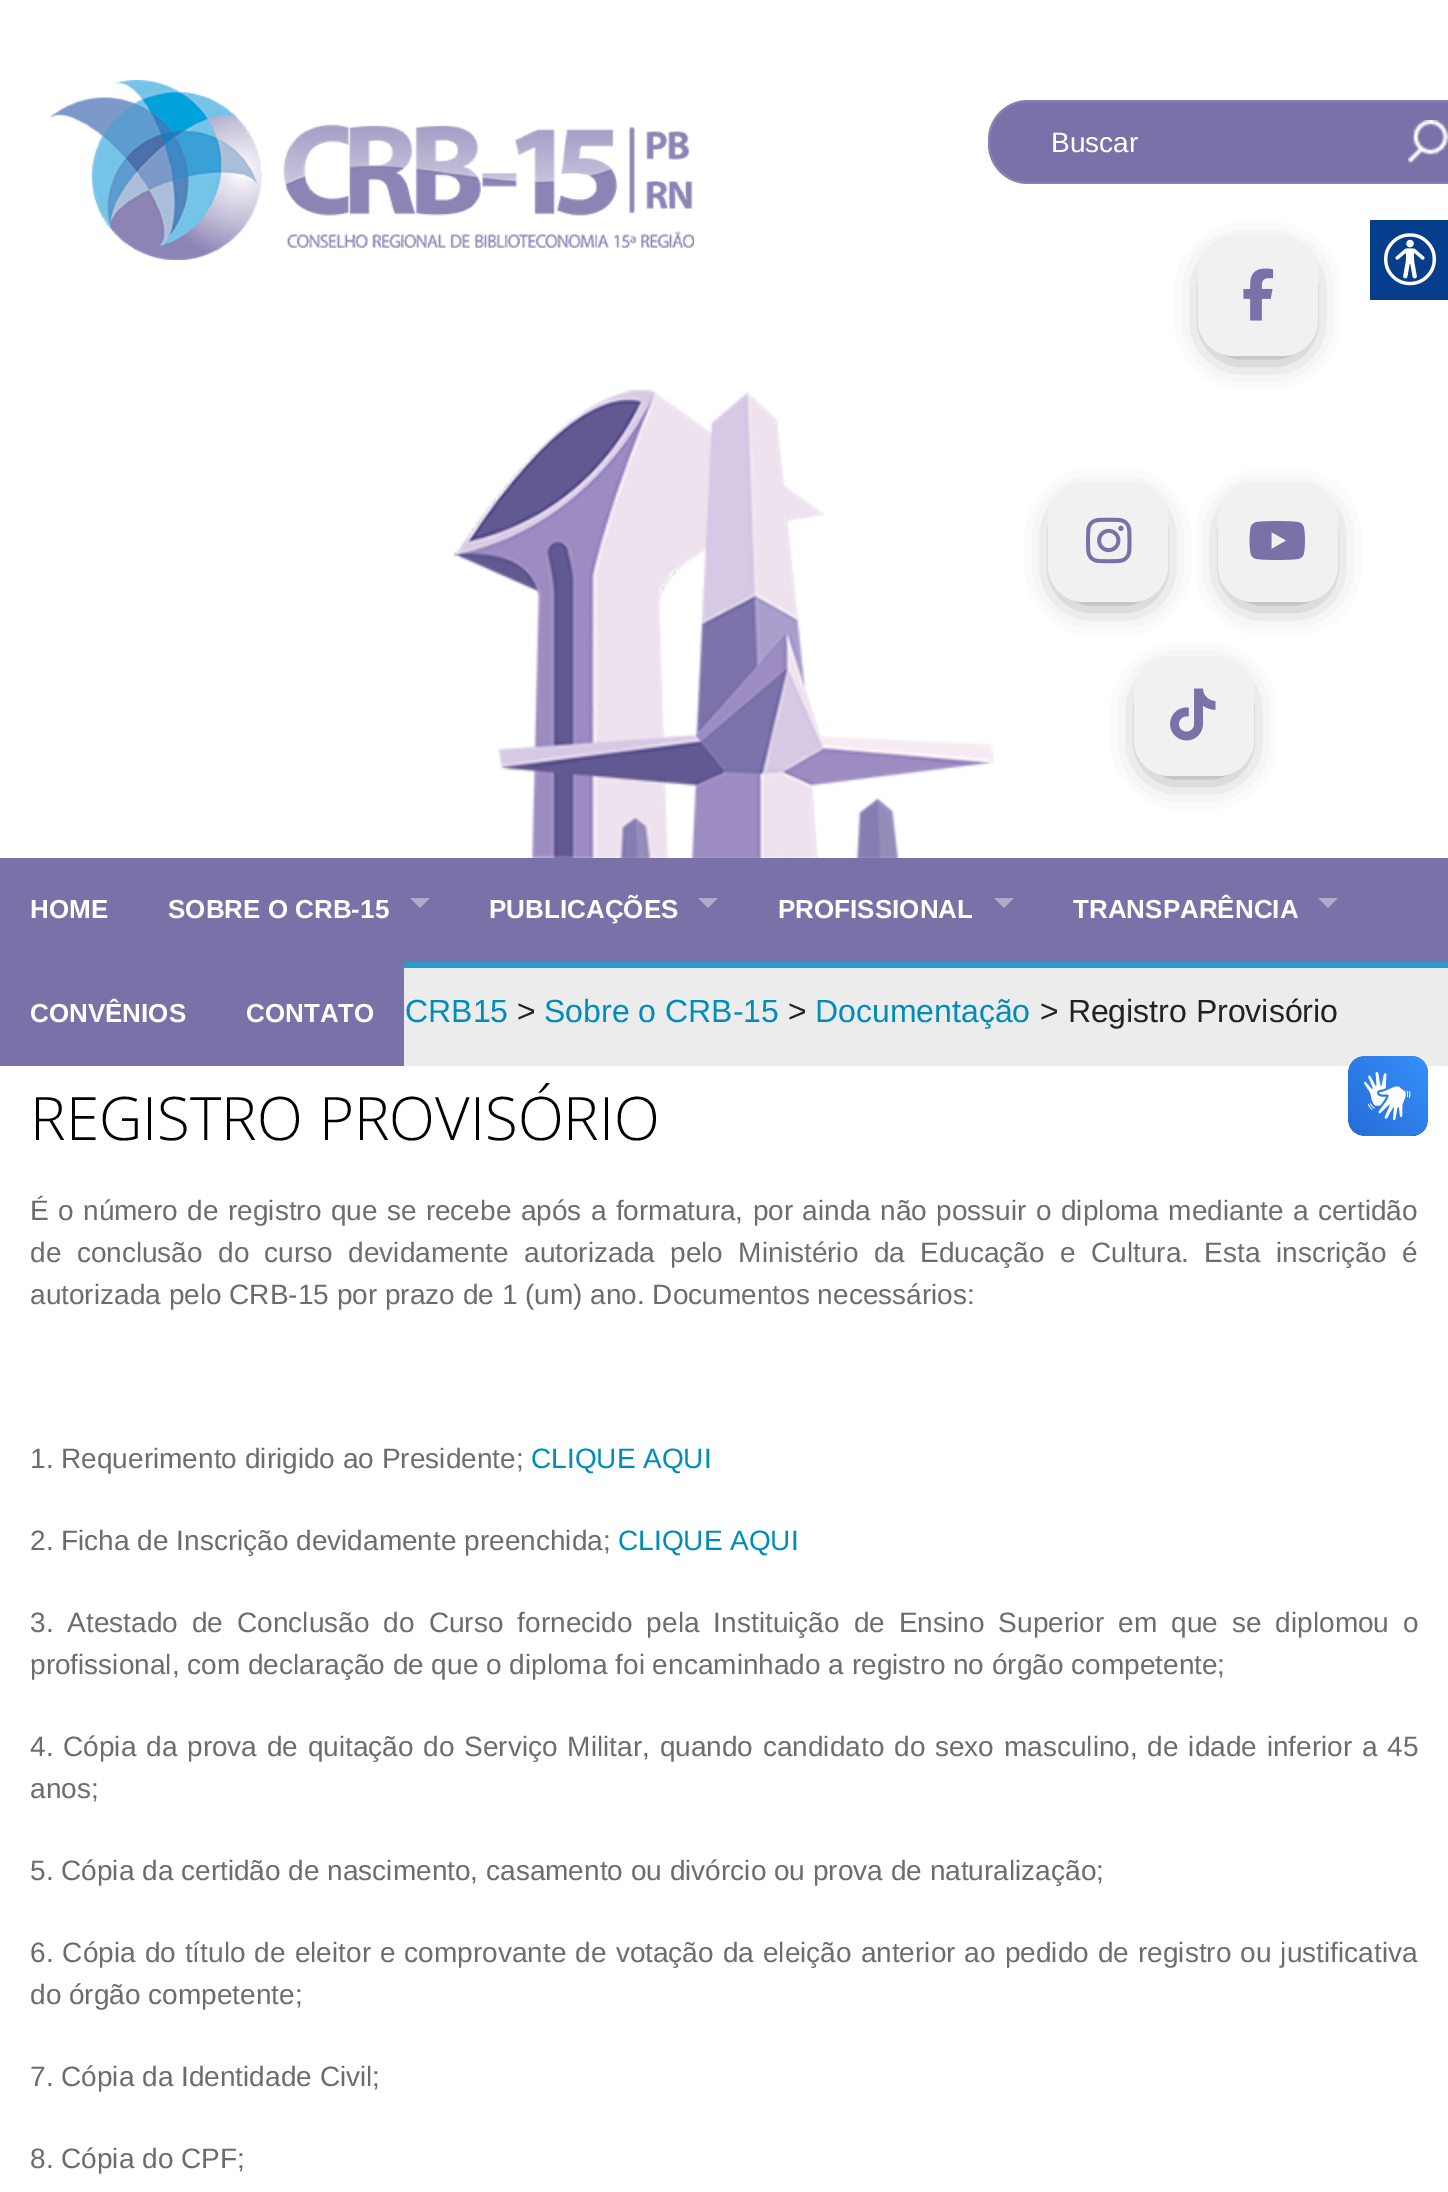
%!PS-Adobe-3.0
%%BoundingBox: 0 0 1448 2192
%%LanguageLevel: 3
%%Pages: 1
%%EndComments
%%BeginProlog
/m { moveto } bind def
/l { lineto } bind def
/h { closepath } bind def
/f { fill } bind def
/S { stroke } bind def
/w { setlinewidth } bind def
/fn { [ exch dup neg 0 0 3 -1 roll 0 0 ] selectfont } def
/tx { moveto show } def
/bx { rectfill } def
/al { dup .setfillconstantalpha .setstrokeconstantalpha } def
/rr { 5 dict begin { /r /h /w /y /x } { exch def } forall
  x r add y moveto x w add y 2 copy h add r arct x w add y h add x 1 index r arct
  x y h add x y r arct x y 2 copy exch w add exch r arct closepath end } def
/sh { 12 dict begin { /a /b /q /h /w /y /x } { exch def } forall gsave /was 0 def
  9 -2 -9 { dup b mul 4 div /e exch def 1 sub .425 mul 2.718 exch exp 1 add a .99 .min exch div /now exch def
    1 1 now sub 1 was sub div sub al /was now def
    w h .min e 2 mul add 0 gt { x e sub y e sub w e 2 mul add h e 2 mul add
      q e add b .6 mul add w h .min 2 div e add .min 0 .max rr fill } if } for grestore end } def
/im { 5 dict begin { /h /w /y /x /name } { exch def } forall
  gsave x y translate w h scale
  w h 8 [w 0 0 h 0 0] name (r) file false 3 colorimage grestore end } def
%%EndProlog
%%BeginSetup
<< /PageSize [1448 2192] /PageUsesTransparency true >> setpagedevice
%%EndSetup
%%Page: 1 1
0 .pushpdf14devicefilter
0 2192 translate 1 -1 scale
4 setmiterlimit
1 setgray
0 0 1448 2192 bx
(image0.raw) 453 389 542 469 im
(image1.raw) 50 80 644 180 im
0.482 0.443 0.663 setrgbcolor
988 100 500 84 40 rr f
0.1 al
1 setgray
2 w
989 101 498 82 39 rr S
/LiberationSans-Regular 28 fn
1 al
(Buscar) 1051 152 tx
(image2.raw) 1408 120 40 44 im
0 setgray
1208 256 100 100 26 15 0.44 sh
0.945 setgray
1198 236 120 120 36 rr f
(image3.raw) 1243 268 31 53 im
0 setgray
1058 502 100 100 26 15 0.44 sh
0.945 setgray
1048 482 120 120 36 rr f
(image4.raw) 1086 517 46 47 im
0 setgray
1228 502 100 100 26 15 0.44 sh
0.945 setgray
1218 482 120 120 36 rr f
(image5.raw) 1249 521 56 39 im
0 setgray
1144 676 100 100 26 15 0.44 sh
0.945 setgray
1134 656 120 120 36 rr f
(image6.raw) 1170 688 46 53 im
0.024 0.239 0.553 setrgbcolor
1370 220 78 80 bx
(image7.raw) 1384 233 52 53 im
0.157 0.616 0.8 setrgbcolor
404 962 1044 6 bx
0.482 0.443 0.663 setrgbcolor
0 858 1448 104 bx
/LiberationSans-Bold 26 fn
1 setgray
(HOME) 30 918 tx
(SOBRE O CRB-15) 168 918 tx
0.69 0.667 0.796 setrgbcolor
410 898 m 430 898 l 420 908 l h f
1 setgray
(PUBLICAÇÕES) 489 918 tx
0.69 0.667 0.796 setrgbcolor
698 898 m 718 898 l 708 908 l h f
1 setgray
(PROFISSIONAL) 778 918 tx
0.69 0.667 0.796 setrgbcolor
994 898 m 1014 898 l 1004 908 l h f
1 setgray
(TRANSPARÊNCIA) 1073 918 tx
0.69 0.667 0.796 setrgbcolor
1318 898 m 1338 898 l 1328 908 l h f
0.482 0.443 0.663 setrgbcolor
0 962 404 104 bx
1 setgray
(CONVÊNIOS) 30 1022 tx
(CONTATO) 246 1022 tx
0.925 setgray
404 968 1044 98 bx
/LiberationSans-Regular 32 fn
0 0.549 0.729 setrgbcolor
(CRB15) 405 1022 tx
0.133 setgray
(>) 517 1022 tx
0 0.549 0.729 setrgbcolor
(Sobre o CRB-15) 544 1022 tx
0.133 setgray
(>) 788 1022 tx
0 0.549 0.729 setrgbcolor
(Documentação) 815 1022 tx
0.133 setgray
(> Registro Provisório) 1040 1022 tx
(image8.raw) 1348 1056 80 80 im
(image9.raw) 1348 1056 80 80 im
/OpenSans-Light 60 fn
0 setgray
(REGISTRO PROVISÓRIO) 30 1140 tx
/LiberationSans-Regular 28 fn
0.424 setgray
30 1220 m 1.6 0 32 (É o número de registro que se recebe após a formatura, por ainda não possuir o diploma mediante a certidão) widthshow
30 1262 m 7.6 0 32 (de conclusão do curso devidamente autorizada pelo Ministério da Educação e Cultura. Esta inscrição é) widthshow
(autorizada pelo CRB-15 por prazo de 1 \(um\) ano. Documentos necessários:) 30 1304 tx
(1. Requerimento dirigido ao Presidente;) 30 1468 tx
0 0.549 0.729 setrgbcolor
(CLIQUE AQUI) 531 1468 tx
0.424 setgray
(2. Ficha de Inscrição devidamente preenchida;) 30 1550 tx
0 0.549 0.729 setrgbcolor
(CLIQUE AQUI) 618 1550 tx
0.424 setgray
30 1632 m 6.25 0 32 (3. Atestado de Conclusão do Curso fornecido pela Instituição de Ensino Superior em que se diplomou o) widthshow
(profissional, com declaração de que o diploma foi encaminhado a registro no órgão competente;) 30 1674 tx
30 1756 m 2 0 32 (4. Cópia da prova de quitação do Serviço Militar, quando candidato do sexo masculino, de idade inferior a 45) widthshow
(anos;) 30 1798 tx
(5. Cópia da certidão de nascimento, casamento ou divórcio ou prova de naturalização;) 30 1880 tx
30 1962 m 1.25 0 32 (6. Cópia do título de eleitor e comprovante de votação da eleição anterior ao pedido de registro ou justificativa) widthshow
(do órgão competente;) 30 2004 tx
(7. Cópia da Identidade Civil;) 30 2086 tx
(8. Cópia do CPF;) 30 2168 tx
.poppdf14devicefilter showpage
%%EOF
